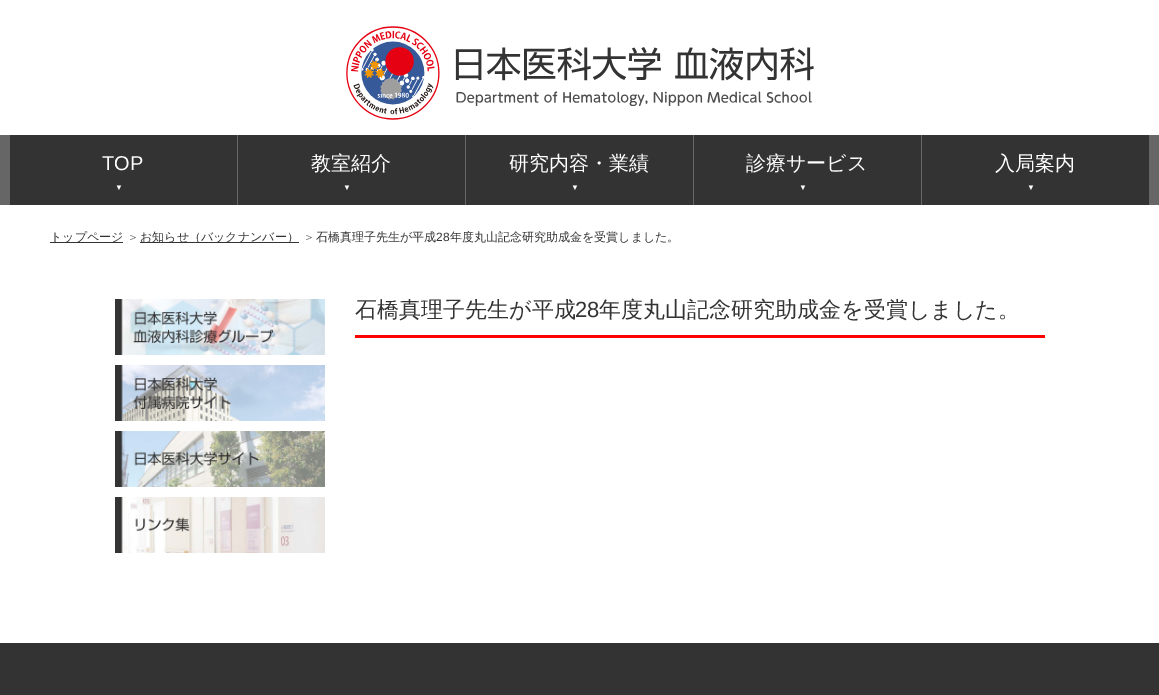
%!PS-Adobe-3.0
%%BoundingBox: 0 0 1159 695
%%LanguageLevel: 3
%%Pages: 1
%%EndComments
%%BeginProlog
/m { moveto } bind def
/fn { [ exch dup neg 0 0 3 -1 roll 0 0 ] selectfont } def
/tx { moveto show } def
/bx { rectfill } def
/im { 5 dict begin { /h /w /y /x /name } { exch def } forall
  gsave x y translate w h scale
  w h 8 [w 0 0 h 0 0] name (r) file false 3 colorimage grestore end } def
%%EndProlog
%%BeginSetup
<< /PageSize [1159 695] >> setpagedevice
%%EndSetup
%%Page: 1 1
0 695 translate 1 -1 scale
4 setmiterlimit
1 setgray
0 0 1159 695 bx
(image0.raw) 346 26 468 94 im
0.4 setgray
0 135 1159 70 bx
0.2 setgray
10 135 227 70 bx
/LiberationSans-Regular 20 fn
1 setgray
(TOP) 102 170 tx
/LiberationSans-Regular 8 fn
115 190 m 8 0 (▼) ashow
0.2 setgray
238 135 227 70 bx
/WenQuanYiZenHei-Medium 20 fn
1 setgray
(教室紹介) 311 170 tx
/LiberationSans-Regular 8 fn
343 190 m 8 0 (▼) ashow
0.2 setgray
466 135 227 70 bx
/WenQuanYiZenHei-Medium 20 fn
1 setgray
(研究内容・業績) 509 170 tx
/LiberationSans-Regular 8 fn
571 190 m 8 0 (▼) ashow
0.2 setgray
694 135 227 70 bx
/WenQuanYiZenHei-Medium 20 fn
1 setgray
(診療サービス) 746 170 tx
/LiberationSans-Regular 8 fn
799 190 m 8 0 (▼) ashow
0.2 setgray
922 135 227 70 bx
/WenQuanYiZenHei-Medium 20 fn
1 setgray
(入局案内) 995 170 tx
/LiberationSans-Regular 8 fn
1027 190 m 8 0 (▼) ashow
0.2 setgray
50 242 73 1 bx
/WenQuanYiZenHei-Medium 12 fn
(トップページ) 50 241 tx
0.4 setgray
(＞) 127 241 tx
0.2 setgray
140 242 159 1 bx
(お知らせ（バックナンバー）) 140 241 tx
0.4 setgray
(＞) 303 241 tx
0.2 setgray
(石橋真理子先生が平成) 316 241 tx
/LiberationSans-Regular 12 fn
(28) 436 241 tx
/WenQuanYiZenHei-Medium 12 fn
(年度丸山記念研究助成金を受賞しました。) 450 241 tx
(image1.raw) 115 299 210 56 im
(image2.raw) 115 365 210 56 im
(image3.raw) 115 431 210 56 im
(image4.raw) 115 497 210 56 im
1 0 0 setrgbcolor
355 335 690 3 bx
/WenQuanYiZenHei-Medium 22 fn
0.2 setgray
(石橋真理子先生が平成) 355 317 tx
/LiberationSans-Regular 22 fn
(28) 575 317 tx
/WenQuanYiZenHei-Medium 22 fn
(年度丸山記念研究助成金を受賞しました。) 599 317 tx
0 643 1159 52 bx
showpage
%%EOF
